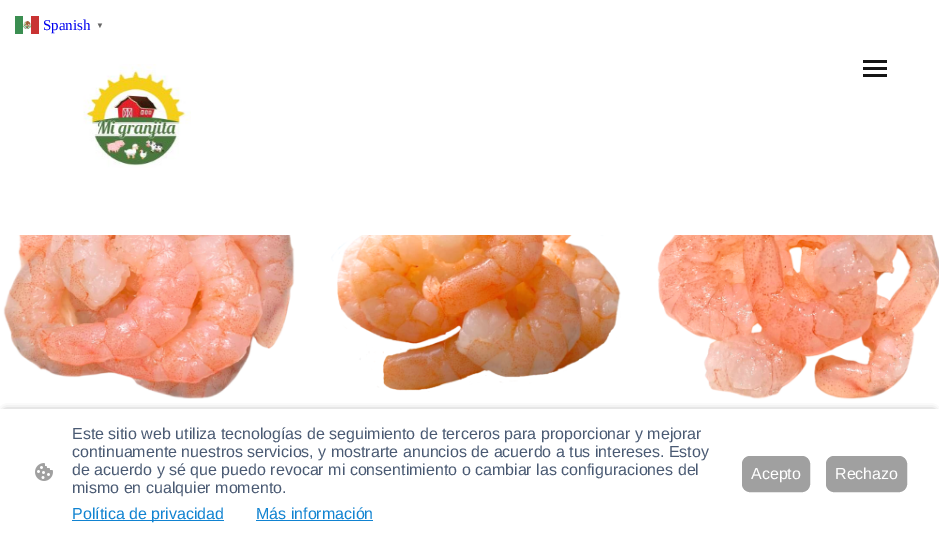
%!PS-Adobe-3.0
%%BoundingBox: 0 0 939 539
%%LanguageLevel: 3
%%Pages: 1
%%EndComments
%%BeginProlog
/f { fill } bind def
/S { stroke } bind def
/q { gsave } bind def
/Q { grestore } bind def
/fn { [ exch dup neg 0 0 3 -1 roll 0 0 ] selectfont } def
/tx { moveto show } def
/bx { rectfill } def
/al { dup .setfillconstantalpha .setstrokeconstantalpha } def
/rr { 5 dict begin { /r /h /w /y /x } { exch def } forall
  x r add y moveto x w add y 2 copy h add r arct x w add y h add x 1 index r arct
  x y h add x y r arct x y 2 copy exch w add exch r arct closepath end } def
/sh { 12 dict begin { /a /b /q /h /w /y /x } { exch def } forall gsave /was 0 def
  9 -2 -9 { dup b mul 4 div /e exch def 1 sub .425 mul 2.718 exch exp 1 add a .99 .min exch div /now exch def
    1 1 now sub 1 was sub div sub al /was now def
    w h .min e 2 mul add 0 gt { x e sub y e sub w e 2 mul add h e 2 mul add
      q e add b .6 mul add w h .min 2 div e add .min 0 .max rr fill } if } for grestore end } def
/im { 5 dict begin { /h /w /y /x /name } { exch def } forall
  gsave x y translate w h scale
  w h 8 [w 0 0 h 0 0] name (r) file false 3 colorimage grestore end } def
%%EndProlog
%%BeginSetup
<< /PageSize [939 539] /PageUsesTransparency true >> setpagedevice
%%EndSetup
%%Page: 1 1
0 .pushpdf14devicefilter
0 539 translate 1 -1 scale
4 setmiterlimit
1 setgray
0 0 939 539 bx
(image0.raw) 15 16 24 18 im
/LiberationSerif-Regular 15 fn
0 0 0.933 setrgbcolor
(Spanish) 43 30 tx
/LiberationSerif-Bold 8 fn
0.4 setgray
(▼) 96 28 tx
(image1.raw) 83 64 108 104 im
0.082 setgray
863 60 24 3 bx
863 67 24 3 bx
863 74 24 3 bx
(image2.raw) 3 235 292 164 im
(image3.raw) 331 235 290 157 im
(image4.raw) 657 235 282 165 im
0 setgray
6 412 927 118 0 4 0.63 sh
1 setgray
0 409 939 130 bx
(image5.raw) 35 463 18 18 im
/LiberationSans-Regular 16 fn
0.29 0.353 0.451 setrgbcolor
(Este sitio web utiliza tecnologías de seguimiento de terceros para proporcionar y mejorar) 72 439 tx
(continuamente nuestros servicios, y mostrarte anuncios de acuerdo a tus intereses. Estoy) 72 457 tx
(de acuerdo y sé que puedo revocar mi consentimiento o cambiar las configuraciones del) 72 475 tx
(mismo en cualquier momento.) 72 493 tx
0.067 0.514 0.82 setrgbcolor
72 520 152 1 bx
(Política de privacidad) 72 519 tx
(Más información) 256 519 tx
256 520 117 1 bx
0.627 setgray
742.5 456.5 67 35 7.5 rr q f Q
S
1 setgray
(Acepto) 751 479 tx
0.627 setgray
826.5 456.5 80 35 7.5 rr q f Q
S
1 setgray
(Rechazo) 835 479 tx
.poppdf14devicefilter showpage
%%EOF
